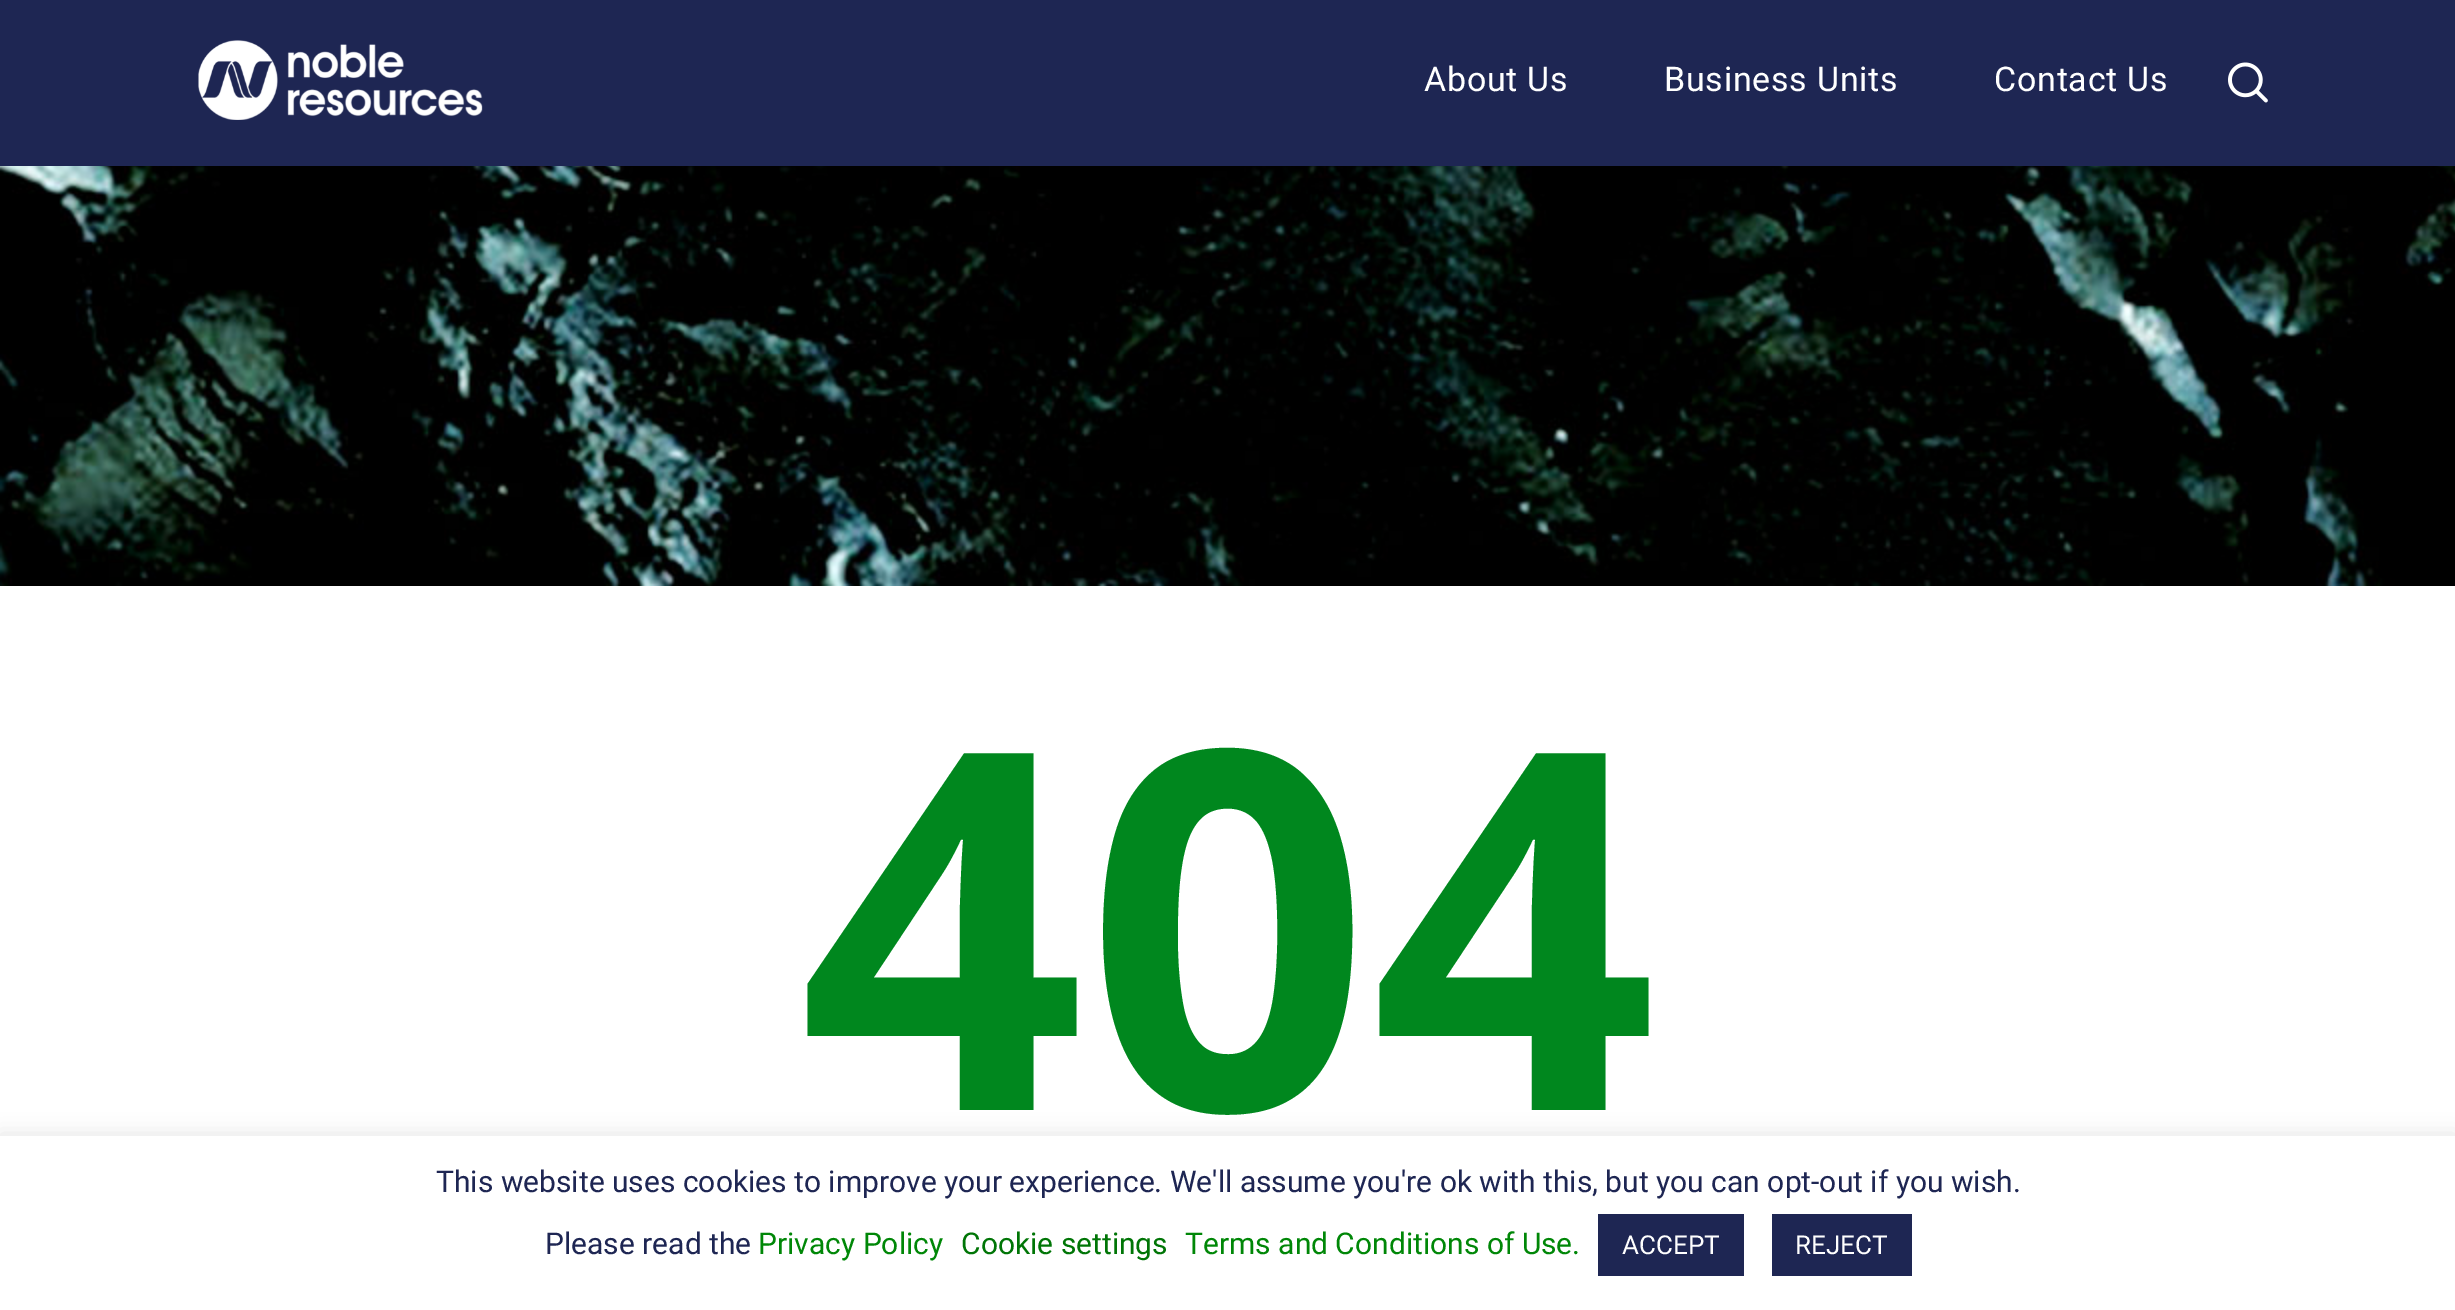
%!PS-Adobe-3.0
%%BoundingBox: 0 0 2455 1310
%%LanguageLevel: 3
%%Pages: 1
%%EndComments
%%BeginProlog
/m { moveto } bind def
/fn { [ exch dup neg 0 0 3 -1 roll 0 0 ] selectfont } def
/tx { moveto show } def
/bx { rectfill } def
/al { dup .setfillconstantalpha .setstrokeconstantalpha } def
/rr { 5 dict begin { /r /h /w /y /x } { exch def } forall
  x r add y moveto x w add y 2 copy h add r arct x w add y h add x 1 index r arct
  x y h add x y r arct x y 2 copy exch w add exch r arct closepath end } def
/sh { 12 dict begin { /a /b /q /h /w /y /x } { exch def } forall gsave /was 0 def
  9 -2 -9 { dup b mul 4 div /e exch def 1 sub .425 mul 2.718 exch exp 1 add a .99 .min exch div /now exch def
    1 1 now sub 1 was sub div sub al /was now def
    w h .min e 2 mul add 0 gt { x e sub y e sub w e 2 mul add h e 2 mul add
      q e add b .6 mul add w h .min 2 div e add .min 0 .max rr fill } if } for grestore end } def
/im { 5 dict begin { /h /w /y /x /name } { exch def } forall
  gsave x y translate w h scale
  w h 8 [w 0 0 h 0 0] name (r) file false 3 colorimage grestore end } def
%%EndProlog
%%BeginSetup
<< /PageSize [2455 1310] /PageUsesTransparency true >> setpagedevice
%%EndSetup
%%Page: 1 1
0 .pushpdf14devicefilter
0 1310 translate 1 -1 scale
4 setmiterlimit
1 setgray
0 0 2455 1310 bx
0.118 0.149 0.325 setrgbcolor
0 0 2455 166 bx
(image0.raw) 198 40 285 80 im
/Roboto-Regular 34 fn
1 setgray
1424 91 m 0.75 0 (About Us) ashow
1664 91 m 0.75 0 (Business Units) ashow
1994 91 m 0.75 0 (Contact Us) ashow
(image1.raw) 2228 62 40 41 im
(image2.raw) 0 166 2455 420 im
/OpenSans-Bold 500 fn
0 0.529 0.118 setrgbcolor
(404) 799 1110 tx
0.675 0.671 0.671 setrgbcolor
0 1134 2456 174 0 10 0.3 sh
1 setgray
0 1136 2455 174 bx
/Roboto-Regular 30 fn
0.118 0.149 0.325 setrgbcolor
(This website uses cookies to improve your experience. We'll assume you're ok with this, but you can opt-out if you wish.) 436 1192 tx
(Please read the) 545 1254 tx
0 0.529 0.027 setrgbcolor
(Privacy Policy) 758 1254 tx
0 0.459 0.024 setrgbcolor
(Cookie settings) 961 1254 tx
0 0.529 0.027 setrgbcolor
(Terms and Conditions of Use.) 1185 1254 tx
0.118 0.149 0.325 setrgbcolor
1598 1214 146 62 bx
/Roboto-Regular 26 fn
1 setgray
(ACCEPT) 1622 1254 tx
0.118 0.149 0.325 setrgbcolor
1772 1214 140 62 bx
1 setgray
(REJECT) 1795 1254 tx
.poppdf14devicefilter showpage
%%EOF
